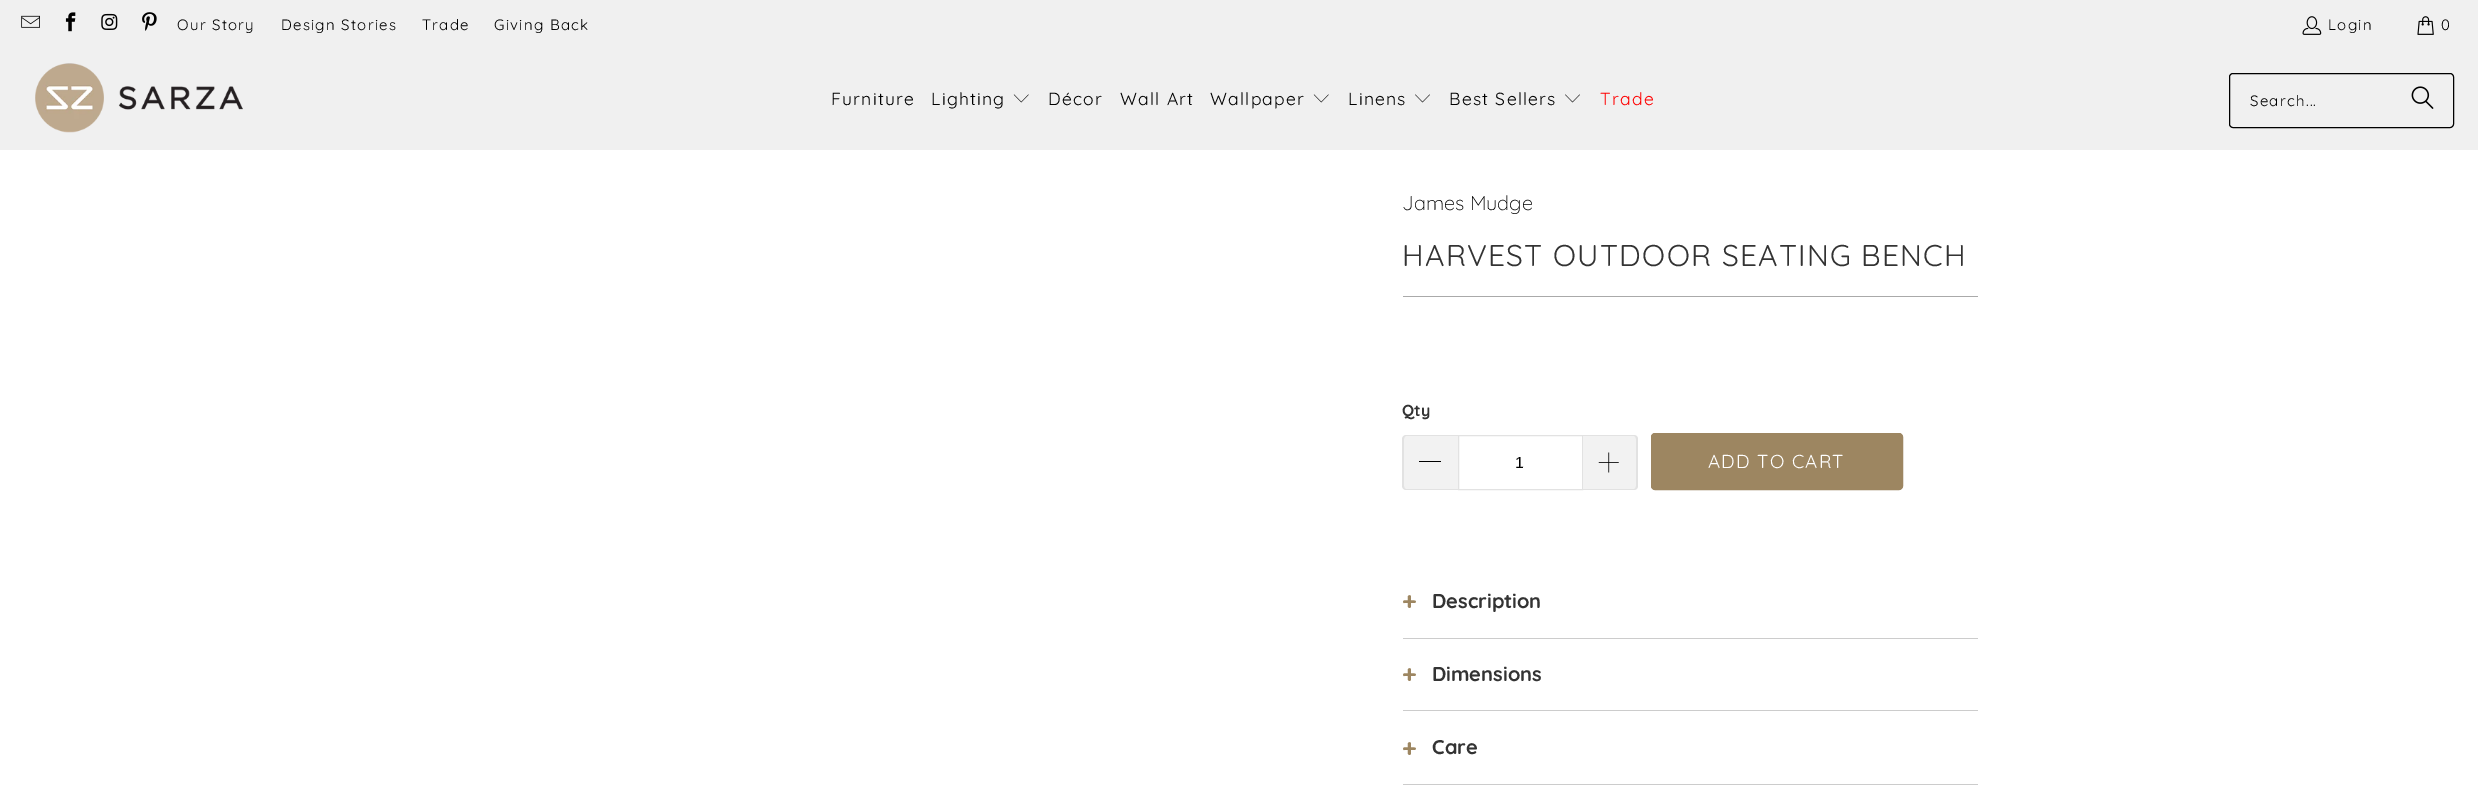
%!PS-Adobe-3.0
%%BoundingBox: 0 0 2478 810
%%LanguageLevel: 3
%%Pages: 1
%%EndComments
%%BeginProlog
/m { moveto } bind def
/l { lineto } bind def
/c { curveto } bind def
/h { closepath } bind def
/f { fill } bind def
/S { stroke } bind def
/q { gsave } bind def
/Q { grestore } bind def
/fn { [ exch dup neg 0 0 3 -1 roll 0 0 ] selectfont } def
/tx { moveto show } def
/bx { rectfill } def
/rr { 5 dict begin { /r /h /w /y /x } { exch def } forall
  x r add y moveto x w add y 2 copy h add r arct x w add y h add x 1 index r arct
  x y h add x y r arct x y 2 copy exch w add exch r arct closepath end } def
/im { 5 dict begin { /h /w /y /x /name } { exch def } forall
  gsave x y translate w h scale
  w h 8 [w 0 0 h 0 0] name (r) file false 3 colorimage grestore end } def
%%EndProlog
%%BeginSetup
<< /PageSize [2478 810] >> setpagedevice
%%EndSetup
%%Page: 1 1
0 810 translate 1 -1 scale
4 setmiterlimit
1 setgray
0 0 2478 810 bx
0.941 setgray
0 0 2478 150 bx
(image0.raw) 21 15 19 13 im
(image1.raw) 65 12 11 20 im
(image2.raw) 101 13 17 17 im
(image3.raw) 142 12 15 19 im
/Quicksand-Light 15 fn
0 setgray
177 30 m 1.25 0 (Our Story) ashow
281 30 m 1.25 0 (Design Stories) ashow
422 30 m 1.25 0 (Trade) ashow
494 30 m 1.25 0 (Giving Back) ashow
(image4.raw) 2302 16 20 19 im
2328 30 m 1.25 0 (Login) ashow
(image5.raw) 2417 16 17 19 im
2441 30 m 1.25 0 (0) ashow
(image6.raw) 35 63 208 70 im
/Quicksand-Light 17.5 fn
831 105 m 1.25 0 (Furniture) ashow
931 105 m 1.25 0 (Lighting) ashow
(image7.raw) 1013 94 16 9 im
1048 105 m 1.25 0 (Décor) ashow
1120 105 m 1.25 0 (Wall Art) ashow
1210 105 m 1.25 0 (Wallpaper) ashow
(image7.raw) 1313 94 16 9 im
1348 105 m 1.25 0 (Linens) ashow
(image8.raw) 1415 94 15 9 im
1449 105 m 1.25 0 (Best Sellers) ashow
(image8.raw) 1565 94 15 9 im
1 0 0 setrgbcolor
1600 105 m 1.25 0 (Trade) ashow
0 setgray
2229.5 73.5 224 54 3.5 rr S
/Quicksand-Light 15 fn
2250 106 m 1.25 0 (Search...) ashow
(image9.raw) 2411 86 23 23 im
/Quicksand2-Light 20 fn
(James Mudge) 1402 210 tx
/Quicksand-Light 30 fn
0.2 setgray
1402 266 m 1.25 0 (HARVEST OUTDOOR SEATING BENCH) ashow
0.667 setgray
1403 296 575 1 bx
/Quicksand-Bold 16 fn
0.2 setgray
(Qty) 1402 416 tx
0.949 setgray
1407 435 m 1458 435 l 1458 490 l 1407 490 l 1405 490 1403 488 1403 486 c 1403 439 l 1403 437 1405 435 1407 435 c h f
0.886 setgray
1406 435 m 1458 435 l 1458 490 l 1406 490 l 1404 490 1402 488 1402 486 c 1402 439 l 1402 437 1404 435 1406 435 c h 1406 436 m 1458 436 l 1458 489 l 1406 489 l 1405 489 1404 488 1404 486 c 1404 439 l 1404 437 1405 436 1406 436 c h eofill
0 setgray
1419 461 22 1 bx
0.886 setgray
1458.5 435.5 124 54 rectstroke
/LiberationSans-Regular 16 fn
0 setgray
(1) 1515 468 tx
0.949 setgray
1583 435 m 1634 435 l 1636 435 1638 437 1638 439 c 1638 486 l 1638 488 1636 490 1634 490 c 1583 490 l h f
0.886 setgray
1582 435 m 1634 435 l 1636 435 1638 437 1638 439 c 1638 486 l 1638 488 1636 490 1634 490 c 1582 490 l h 1582 436 m 1634 436 l 1635 436 1636 437 1636 439 c 1636 486 l 1636 488 1635 489 1634 489 c 1582 489 l h eofill
(image10.raw) 1598 452 21 21 im
0.616 0.525 0.38 setrgbcolor
1651.5 433.5 251 56 3.5 rr q f Q
S
/Quicksand-Light 18.75 fn
1 setgray
1708 468 m 1.25 0 (ADD TO CART) ashow
0.8 setgray
1403 638 575 1 bx
/Quicksand-Bold 25 fn
0.616 0.525 0.38 setrgbcolor
(+) 1402 610 tx
/Quicksand-Bold 20 fn
0.2 setgray
(Description) 1432 608 tx
0.8 setgray
1403 710 575 1 bx
/Quicksand-Bold 25 fn
0.616 0.525 0.38 setrgbcolor
(+) 1402 683 tx
/Quicksand-Bold 20 fn
0.2 setgray
(Dimensions) 1432 681 tx
0.8 setgray
1403 784 575 1 bx
/Quicksand-Bold 25 fn
0.616 0.525 0.38 setrgbcolor
(+) 1402 757 tx
/Quicksand-Bold 20 fn
0.2 setgray
(Care) 1432 754 tx
showpage
%%EOF
